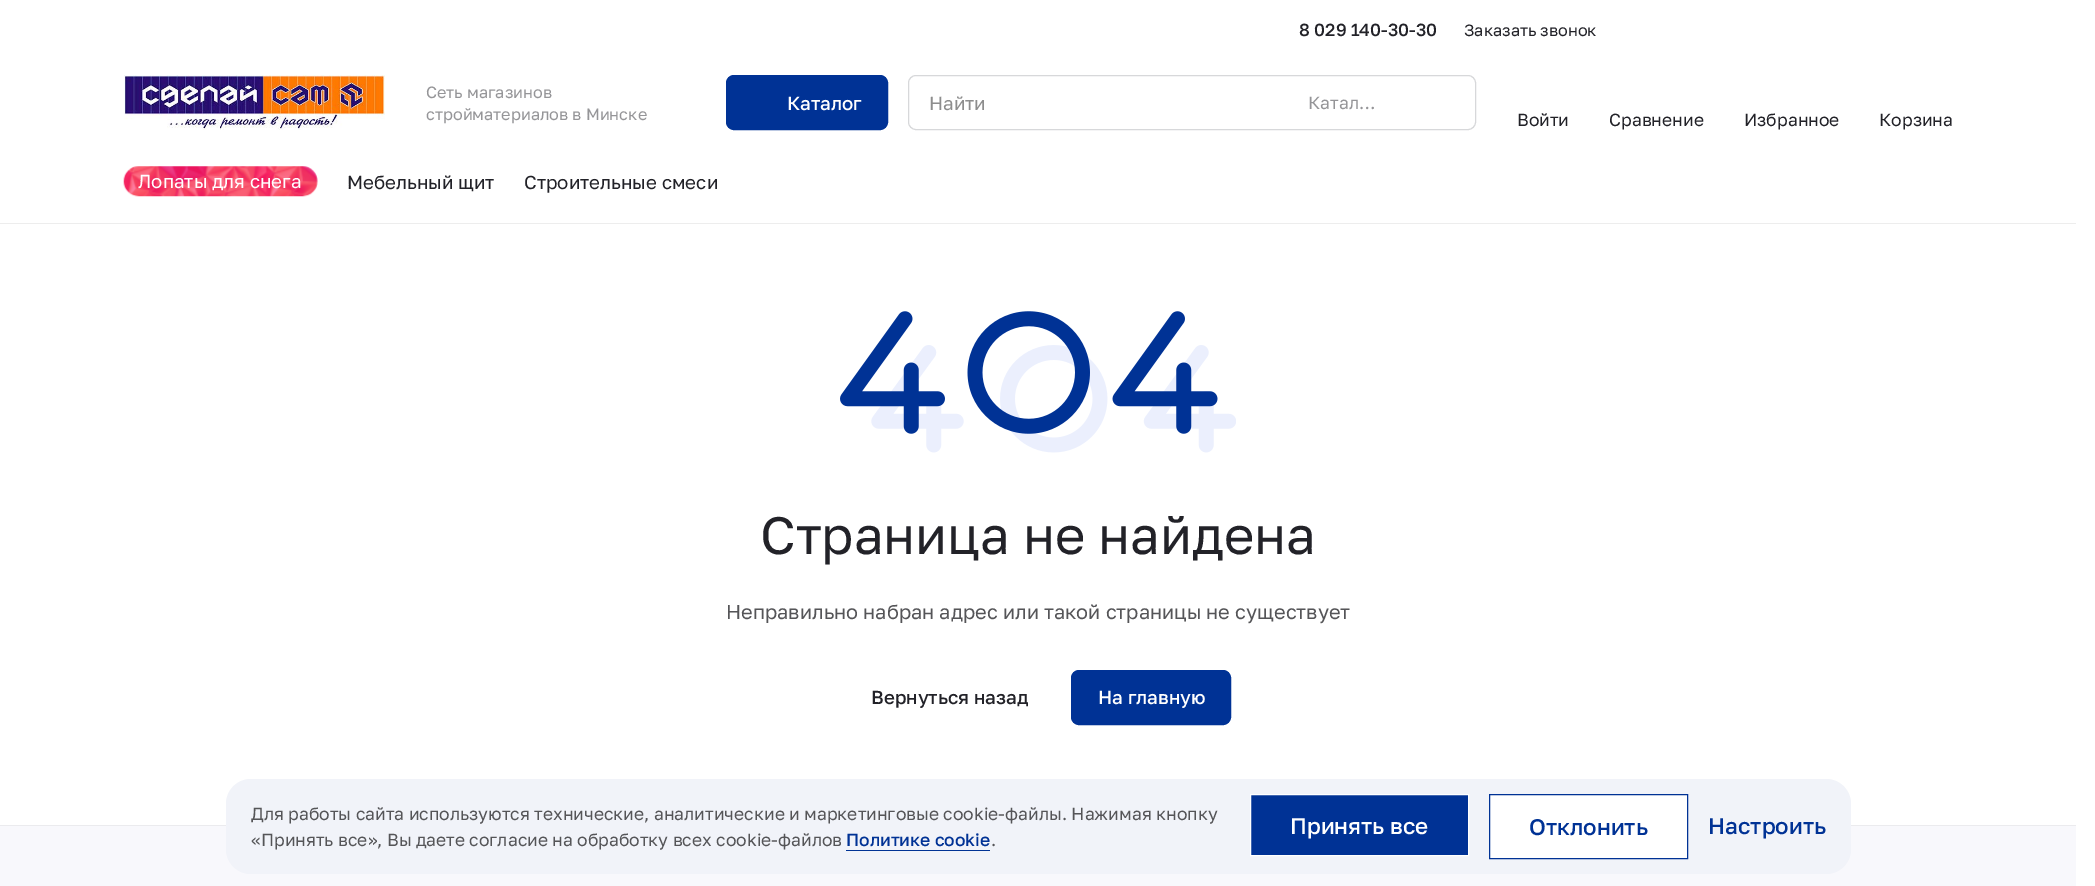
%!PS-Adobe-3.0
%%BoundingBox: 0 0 2095 886
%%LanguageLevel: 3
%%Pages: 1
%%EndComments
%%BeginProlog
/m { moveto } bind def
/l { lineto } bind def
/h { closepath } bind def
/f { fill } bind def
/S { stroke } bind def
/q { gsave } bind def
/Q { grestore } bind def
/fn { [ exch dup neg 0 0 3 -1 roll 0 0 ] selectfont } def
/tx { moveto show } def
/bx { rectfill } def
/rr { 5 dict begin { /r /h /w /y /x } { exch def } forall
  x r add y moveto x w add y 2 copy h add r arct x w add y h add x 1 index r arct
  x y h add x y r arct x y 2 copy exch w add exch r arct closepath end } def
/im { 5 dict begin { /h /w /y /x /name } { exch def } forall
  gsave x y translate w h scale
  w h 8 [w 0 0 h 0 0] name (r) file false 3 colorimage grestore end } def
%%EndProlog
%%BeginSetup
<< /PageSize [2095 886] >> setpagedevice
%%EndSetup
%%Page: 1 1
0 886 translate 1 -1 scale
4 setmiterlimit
1 setgray
0 0 2095 886 bx
0.929 setgray
0 223 2076 1 bx
/GolosText-Medium 17.5 fn
0.133 0.133 0.157 setrgbcolor
(8 029 140-30-30) 1299 36 tx
/GolosText-Regular 16.25 fn
(Заказать звонок) 1464 36 tx
(image0.raw) 124 75 261 55 im
0.584 0.584 0.596 setrgbcolor
(Сеть магазинов) 426 98 tx
(стройматериалов в Минске) 426 120 tx
0 0.196 0.584 setrgbcolor
726.5 75.5 161 54 7.5 rr q f Q
S
/GolosText-Medium 18.75 fn
1 setgray
(Каталог) 787 110 tx
0.843 0.847 0.855 setrgbcolor
908.5 75.5 567 54 7.5 rr S
/GolosText-Regular 18.75 fn
0.553 setgray
(Найти) 929 110 tx
/GolosText-Regular 17.5 fn
0.584 0.584 0.596 setrgbcolor
(Катал…) 1308 109 tx
0.133 0.133 0.157 setrgbcolor
(Войти) 1517 126 tx
(Сравнение) 1609 126 tx
(Избранное) 1744 126 tx
(Корзина) 1879 126 tx
(image1.raw) 123 166 195 31 im
/GolosText-Regular 18.75 fn
1 setgray
(Лопаты для снега) 138 188 tx
0.133 0.133 0.157 setrgbcolor
(Мебельный щит) 347 189 tx
(Строительные смеси) 524 189 tx
(image2.raw) 840 311 396 142 im
/GolosText-Regular 52.5 fn
(Страница не найдена) 760 554 tx
/GolosText-Regular 20 fn
0.333 0.333 0.345 setrgbcolor
(Неправильно набран адрес или такой страницы не существует) 726 619 tx
/GolosText-Medium 18.75 fn
0.133 0.133 0.157 setrgbcolor
(Вернуться назад) 871 704 tx
0 0.196 0.584 setrgbcolor
1071.5 670.5 159 54 7.5 rr q f Q
S
1 setgray
(На главную) 1098 704 tx
0.973 0.973 0.988 setrgbcolor
0 826 2076 60 bx
0.922 0.922 0.933 setrgbcolor
0 825 2076 1 bx
0.945 0.953 0.976 setrgbcolor
226 779 1625 95 25 rr f
/GolosText-Regular 17.5 fn
0.333 0.333 0.345 setrgbcolor
(Для работы сайта используются технические, аналитические и маркетинговые cookie-файлы. Нажимая кнопку) 251 820 tx
(«Принять все», Вы даете согласие на обработку всех cookie-файлов) 251 846 tx
/GolosText-Medium 17.5 fn
0 0.196 0.584 setrgbcolor
(Политике cookie) 846 846 tx
846 850 144 1 bx
/GolosText-Regular 17.5 fn
0.333 0.333 0.345 setrgbcolor
(.) 991 846 tx
0 0.196 0.584 setrgbcolor
1250.5 794.5 m 1468.5 794.5 l 1468.5 855.5 l 1250.5 855.5 l h q f Q
1 setgray
S
/GolosText-Medium 22.5 fn
(Принять все) 1290 834 tx
1489.5 794.5 m 1687.5 794.5 l 1687.5 858.5 l 1489.5 858.5 l h q f Q
0 0.196 0.584 setrgbcolor
S
(Отклонить) 1529 835 tx
(Настроить) 1708 834 tx
showpage
%%EOF
